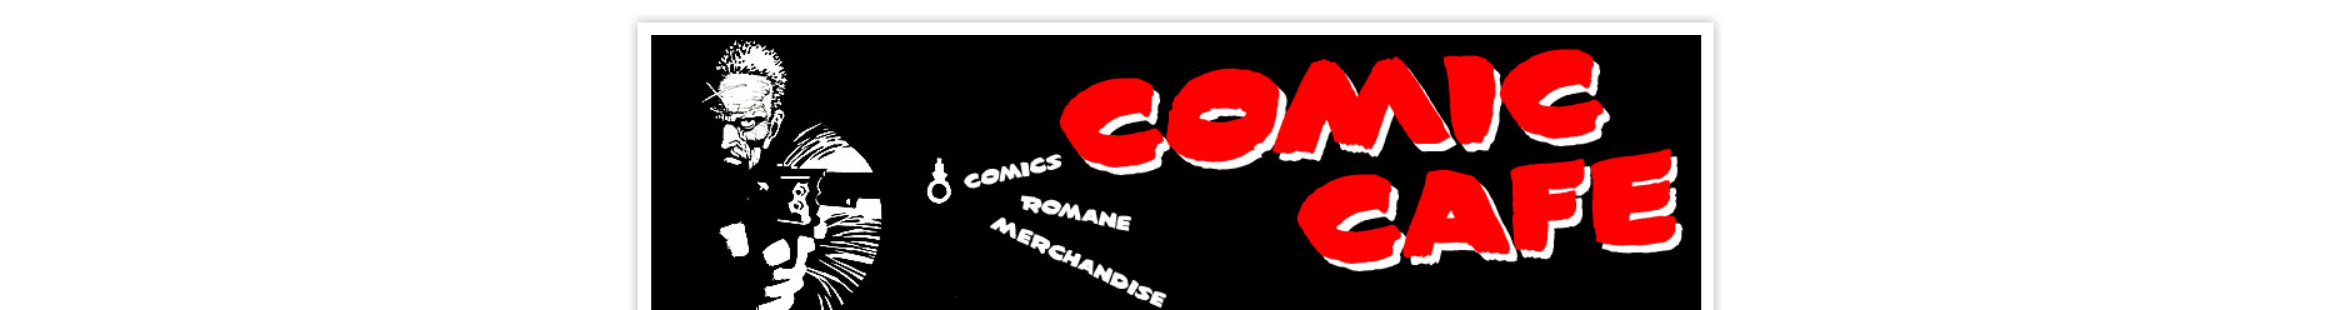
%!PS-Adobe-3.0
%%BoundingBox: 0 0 2352 310
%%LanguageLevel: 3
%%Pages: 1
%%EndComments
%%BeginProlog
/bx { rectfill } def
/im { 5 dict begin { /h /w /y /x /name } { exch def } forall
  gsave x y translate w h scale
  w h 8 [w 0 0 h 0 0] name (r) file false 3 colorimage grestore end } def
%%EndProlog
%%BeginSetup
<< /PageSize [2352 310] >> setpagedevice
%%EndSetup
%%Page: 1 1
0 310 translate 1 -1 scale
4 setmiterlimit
1 setgray
0 0 2352 310 bx
(image0.raw) 629 14 1093 21 im
(image1.raw) 629 35 1093 275 im
(image2.raw) 651 35 1051 275 im
showpage
%%EOF
